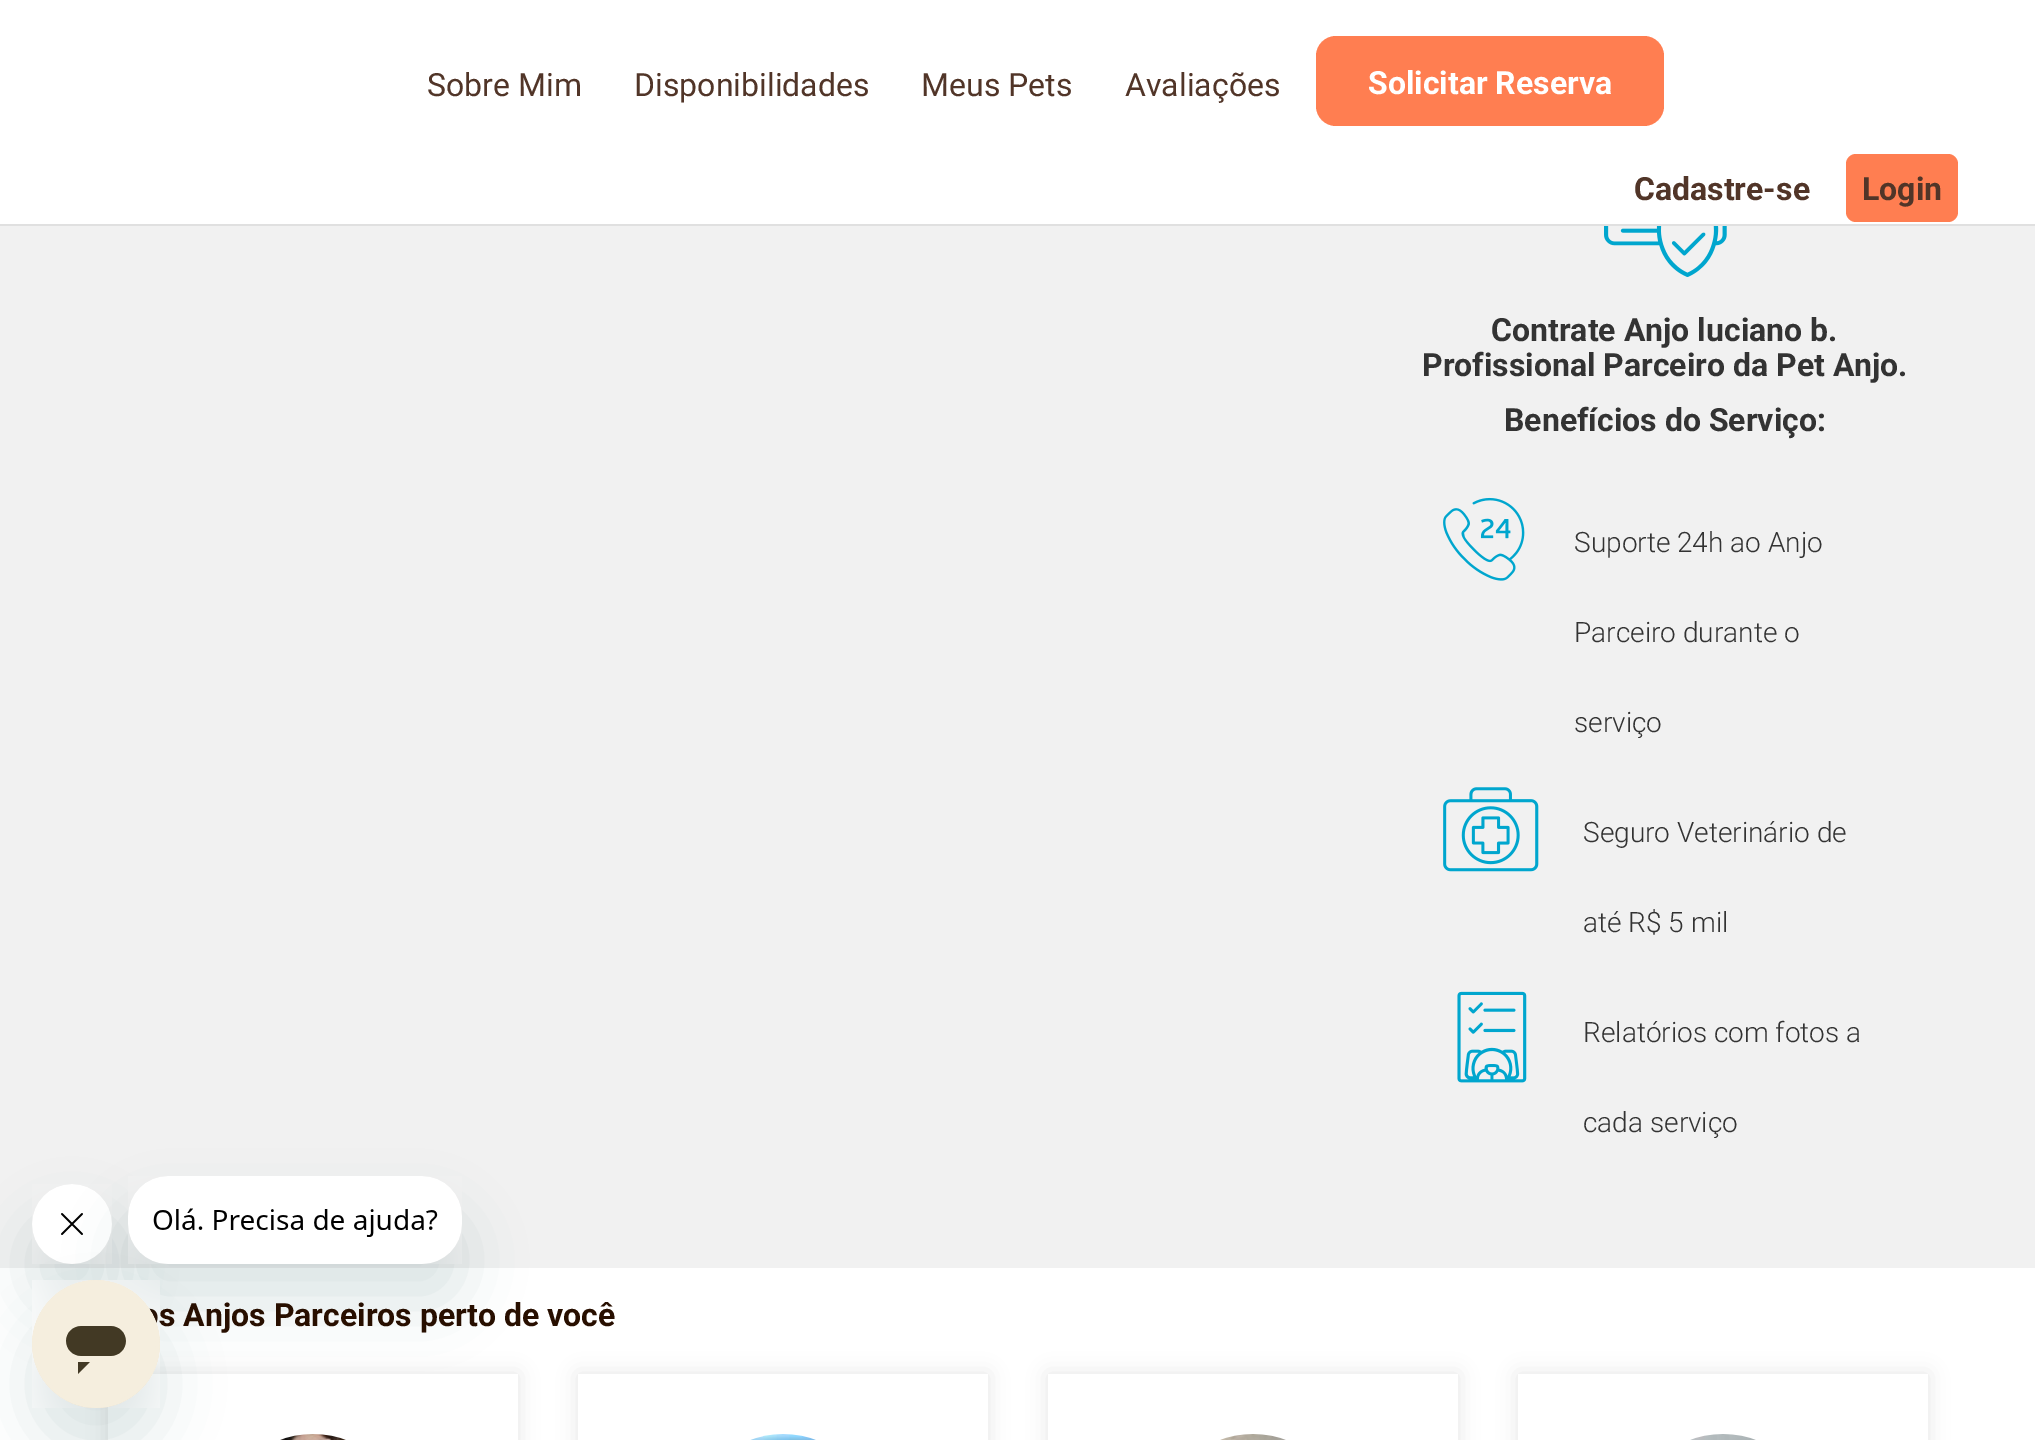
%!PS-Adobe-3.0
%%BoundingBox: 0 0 2035 1440
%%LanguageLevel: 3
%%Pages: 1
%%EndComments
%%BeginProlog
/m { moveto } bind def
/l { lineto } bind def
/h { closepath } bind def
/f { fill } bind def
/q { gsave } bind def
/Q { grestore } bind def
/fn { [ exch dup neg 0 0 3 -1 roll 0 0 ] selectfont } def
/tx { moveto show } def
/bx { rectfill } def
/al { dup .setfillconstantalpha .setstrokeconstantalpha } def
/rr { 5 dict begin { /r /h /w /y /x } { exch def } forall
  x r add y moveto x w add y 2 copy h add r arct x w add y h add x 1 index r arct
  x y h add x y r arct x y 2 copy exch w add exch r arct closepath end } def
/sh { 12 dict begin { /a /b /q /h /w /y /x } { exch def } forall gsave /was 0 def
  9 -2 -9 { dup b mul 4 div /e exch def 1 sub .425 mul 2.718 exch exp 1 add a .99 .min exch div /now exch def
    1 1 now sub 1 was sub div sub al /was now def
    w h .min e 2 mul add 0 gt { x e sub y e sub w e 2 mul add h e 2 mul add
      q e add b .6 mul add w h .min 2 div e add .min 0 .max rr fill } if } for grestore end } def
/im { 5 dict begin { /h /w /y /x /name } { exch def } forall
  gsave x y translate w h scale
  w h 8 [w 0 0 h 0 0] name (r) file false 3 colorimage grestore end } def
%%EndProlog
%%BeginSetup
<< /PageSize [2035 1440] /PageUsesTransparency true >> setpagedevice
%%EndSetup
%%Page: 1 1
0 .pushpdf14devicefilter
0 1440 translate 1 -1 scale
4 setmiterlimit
0.945 setgray
0 0 2035 1440 bx
0.878 setgray
0 224 2035 2 bx
1 setgray
0 0 2035 224 bx
/Roboto-Regular 32 fn
0.318 0.208 0.157 setrgbcolor
(Sobre Mim) 427 96 tx
(Disponibilidades) 634 96 tx
(Meus Pets) 921 96 tx
(Avaliações) 1125 96 tx
1 0.494 0.318 setrgbcolor
1316 36 348 90 20 rr f
/Roboto-Bold 32 fn
1 setgray
(Solicitar Reserva) 1368 94 tx
0.318 0.208 0.157 setrgbcolor
(Cadastre-se) 1634 200 tx
1 0.494 0.318 setrgbcolor
1846 154 112 68 10 rr f
0.318 0.208 0.157 setrgbcolor
(Login) 1862 200 tx
(image0.raw) 1604 226 123 51 im
0.2 setgray
(Contrate Anjo luciano b.) 1491 341 tx
(Profissional Parceiro da Pet Anjo.) 1422 376 tx
(Benefícios do Serviço:) 1504 431 tx
(image1.raw) 1443 497 82 84 im
/Roboto-Light 28 fn
(Suporte 24h ao Anjo) 1574 552 tx
(Parceiro durante o) 1574 642 tx
(serviço) 1574 732 tx
(image2.raw) 1443 787 96 85 im
(Seguro Veterinário de) 1583 842 tx
(até R$ 5 mil) 1583 932 tx
(image3.raw) 1457 991 70 92 im
(Relatórios com fotos a) 1583 1042 tx
(cada serviço) 1583 1132 tx
1 setgray
0 1268 2035 172 bx
0.09 0.286 0.302 setrgbcolor
32 1224 80 80 40 30 0.15 sh
(image5.raw) 32 1184 80 80 im
128 1216 334 88 40 30 0.15 sh
(image4.raw) 128 1176 334 88 im
32 1320 128 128 64 30 0.15 sh
/Roboto-Bold 32 fn
0.157 0.059 0 setrgbcolor
(s Anjos Parceiros perto de você) 159 1326 tx
q
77 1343 m 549 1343 l 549 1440 l 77 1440 l h 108 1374 m 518 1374 l 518 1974 l 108 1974 l h eoclip newpath
0 setgray
108 1374 410 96 0 10 0.1 sh
Q
(image6.raw) 32 1280 128 128 im
(image7.raw) 280 1434 66 6 im
q
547 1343 m 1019 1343 l 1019 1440 l 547 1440 l h 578 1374 m 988 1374 l 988 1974 l 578 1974 l h eoclip newpath
0 setgray
578 1374 410 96 0 10 0.1 sh
Q
(image8.raw) 750 1434 66 6 im
q
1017 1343 m 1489 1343 l 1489 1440 l 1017 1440 l h 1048 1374 m 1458 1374 l 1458 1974 l 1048 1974 l h eoclip newpath
0 setgray
1048 1374 410 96 0 10 0.1 sh
Q
(image9.raw) 1220 1434 66 6 im
q
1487 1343 m 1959 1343 l 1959 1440 l 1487 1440 l h 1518 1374 m 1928 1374 l 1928 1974 l 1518 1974 l h eoclip newpath
0 setgray
1518 1374 410 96 0 10 0.1 sh
Q
(image10.raw) 1690 1434 66 6 im
.poppdf14devicefilter showpage
%%EOF
